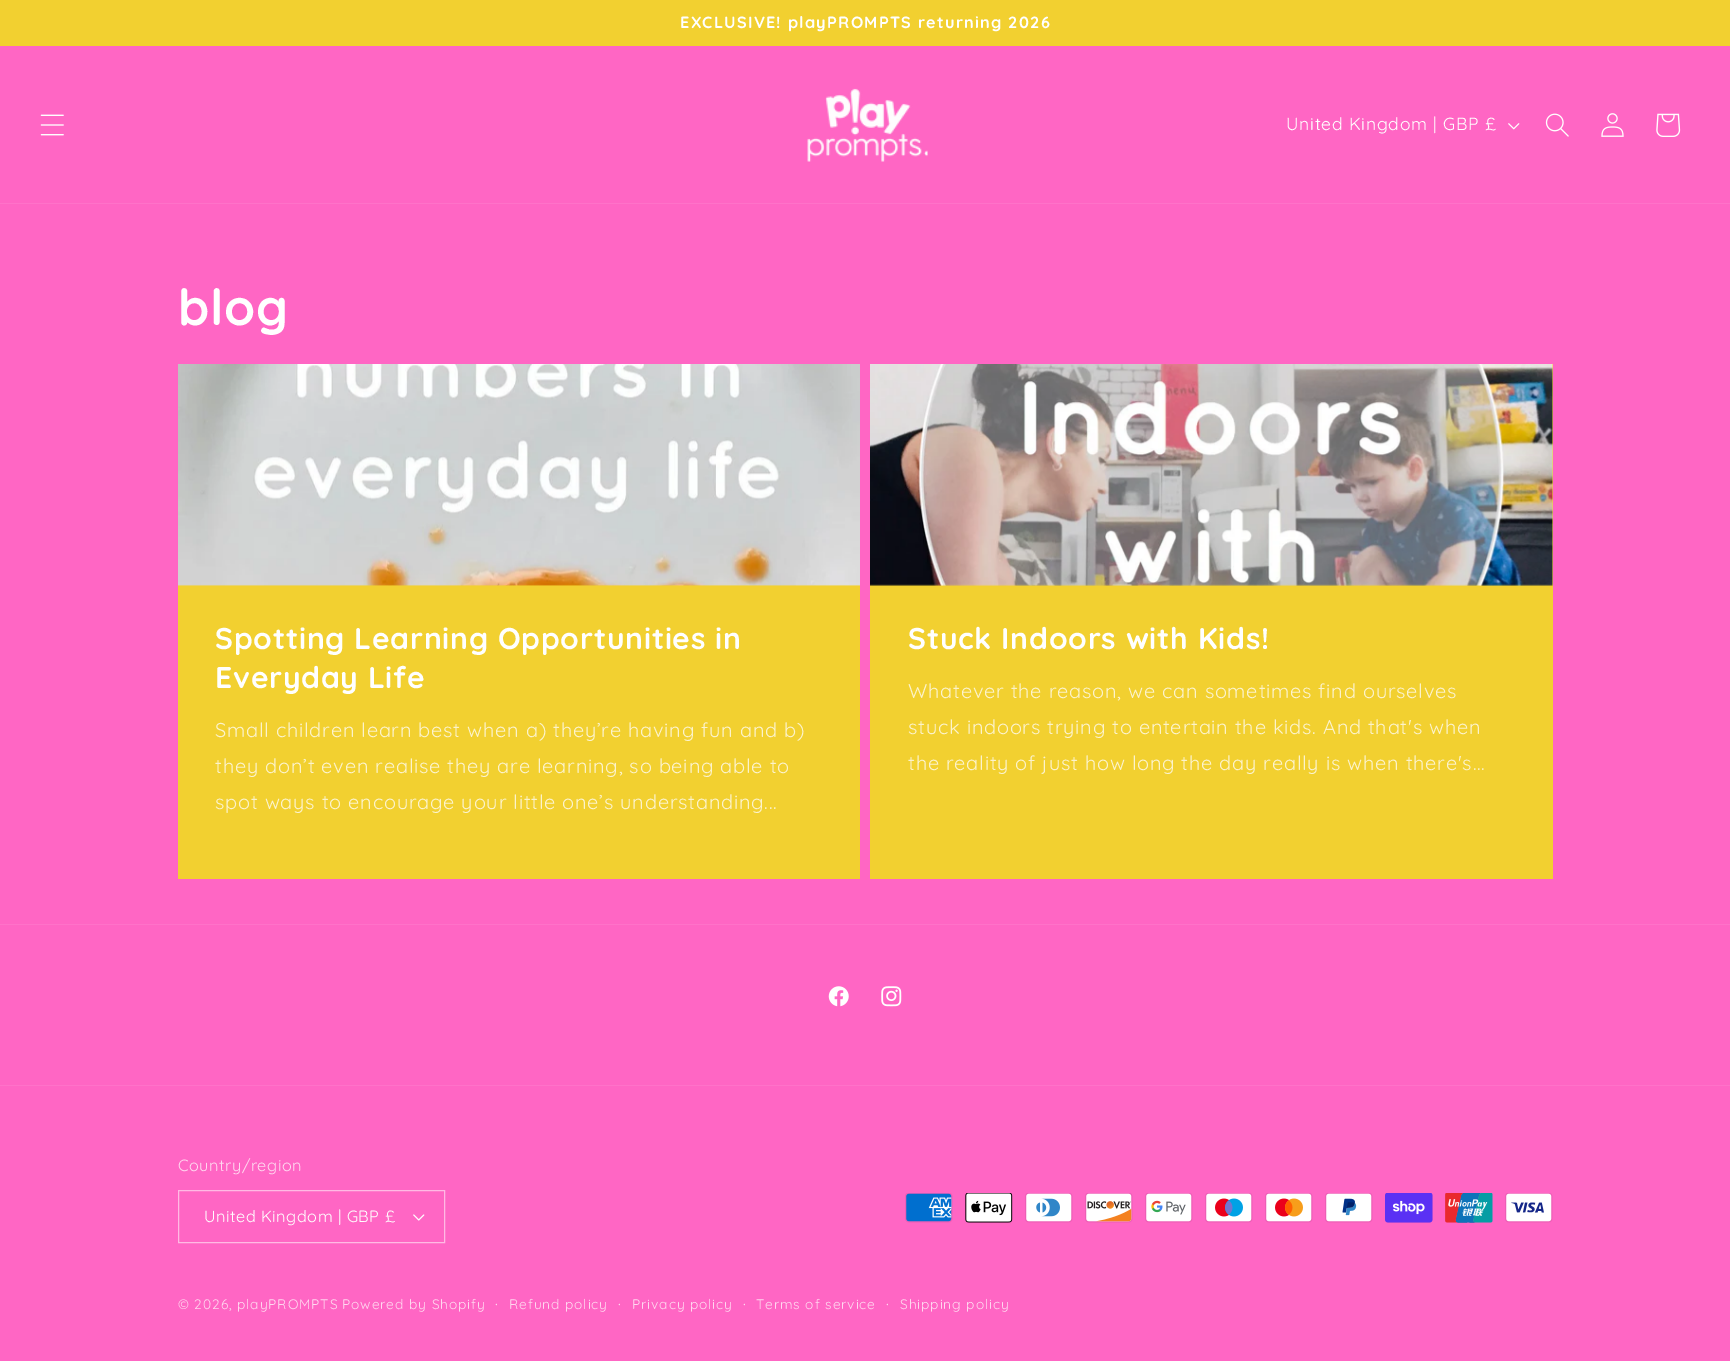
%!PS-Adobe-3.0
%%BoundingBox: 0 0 1730 1361
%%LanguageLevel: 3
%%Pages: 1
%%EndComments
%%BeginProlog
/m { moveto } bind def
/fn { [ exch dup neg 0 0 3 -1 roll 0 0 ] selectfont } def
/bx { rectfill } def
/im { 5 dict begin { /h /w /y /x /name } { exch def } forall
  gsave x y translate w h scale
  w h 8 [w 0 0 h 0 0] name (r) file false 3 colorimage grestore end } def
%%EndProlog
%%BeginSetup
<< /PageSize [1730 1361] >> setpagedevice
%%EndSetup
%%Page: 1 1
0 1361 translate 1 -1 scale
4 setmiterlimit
1 0.4 0.769 setrgbcolor
0 0 1730 1361 bx
0.949 0.816 0.188 setrgbcolor
0 0 1730 46 bx
/Quicksand-Bold 16.25 fn
1 setgray
680 28 m 1.25 0 (EXCLUSIVE! playPROMPTS returning 2026) ashow
1 0.447 0.788 setrgbcolor
0 203 1730 1 bx
(image0.raw) 40 114 24 22 im
(image1.raw) 807 88 121 74 im
/Quicksand-Regular 17.5 fn
1 setgray
1286 130 m 0.75 0 (United Kingdom | GBP £) ashow
(image2.raw) 1508 123 12 7 im
(image3.raw) 1545 113 24 24 im
(image4.raw) 1601 113 23 24 im
(image5.raw) 1656 113 25 24 im
/Quicksand-Bold 50 fn
178 325 m 0.75 0 (blog) ashow
0.949 0.816 0.188 setrgbcolor
178 584 682 295 bx
(image6.raw) 178 364 682 222 im
/Quicksand-Bold 30 fn
1 setgray
215 649 m 0.75 0 (Spotting Learning Opportunities in) ashow
215 688 m 0.75 0 (Everyday Life) ashow
/Quicksand-Regular 20 fn
0.988 0.953 0.796 setrgbcolor
215 737 m 0.75 0 (Small children learn best when a\) they’re having fun and b\)) ashow
215 773 m 0.75 0 (they don’t even realise they are learning, so being able to) ashow
215 809 m 0.75 0 (spot ways to encourage your little one’s understanding...) ashow
0.949 0.816 0.188 setrgbcolor
870 585 683 294 bx
0.953 0.835 0.271 setrgbcolor
870 364 683 221 bx
(image7.raw) 870 364 683 222 im
/Quicksand-Bold 30 fn
1 setgray
908 649 m 0.75 0 (Stuck Indoors with Kids!) ashow
/Quicksand-Regular 20 fn
0.988 0.953 0.796 setrgbcolor
908 698 m 0.75 0 (Whatever the reason, we can sometimes find ourselves) ashow
908 734 m 0.75 0 (stuck indoors trying to entertain the kids. And that's when) ashow
908 770 m 0.75 0 (the reality of just how long the day really is when there's...) ashow
1 0.447 0.788 setrgbcolor
0 924 1730 1 bx
(image8.raw) 828 986 21 21 im
(image9.raw) 881 986 21 21 im
0 1085 1730 1 bx
/Quicksand-Regular 16.25 fn
1 0.851 0.941 setrgbcolor
178 1171 m 0.5 0 (Country/region) ashow
(image10.raw) 413 1214 12 7 im
1 0.729 0.894 setrgbcolor
178.5 1190.5 266 52 rectstroke
1 setgray
204 1222 m 0.5 0 (United Kingdom | GBP £) ashow
(image11.raw) 905 1193 48 30 im
(image12.raw) 965 1193 48 30 im
(image13.raw) 1025 1193 48 30 im
(image14.raw) 1085 1193 48 30 im
(image15.raw) 1145 1193 48 30 im
(image16.raw) 1205 1193 48 30 im
(image17.raw) 1265 1193 48 30 im
(image18.raw) 1325 1193 48 30 im
(image19.raw) 1385 1193 48 30 im
(image20.raw) 1445 1193 48 30 im
(image21.raw) 1505 1193 48 30 im
/Quicksand-Regular 13.75 fn
1 0.851 0.941 setrgbcolor
178 1309 m 0.9 0 (© 2026, playPROMPTS) ashow
342 1309 m 0.9 0 (Powered by Shopify) ashow
/Quicksand-Regular 15 fn
495 1309 m 0.9 0 (·) ashow
/Quicksand-Regular 13.75 fn
509 1309 m 0.9 0 (Refund policy) ashow
/Quicksand-Regular 15 fn
618 1309 m 0.9 0 (·) ashow
/Quicksand-Regular 13.75 fn
632 1309 m 0.9 0 (Privacy policy) ashow
/Quicksand-Regular 15 fn
743 1309 m 0.9 0 (·) ashow
/Quicksand-Regular 13.75 fn
756 1309 m 0.9 0 (Terms of service) ashow
/Quicksand-Regular 15 fn
886 1309 m 0.9 0 (·) ashow
/Quicksand-Regular 13.75 fn
900 1309 m 0.9 0 (Shipping policy) ashow
showpage
%%EOF
